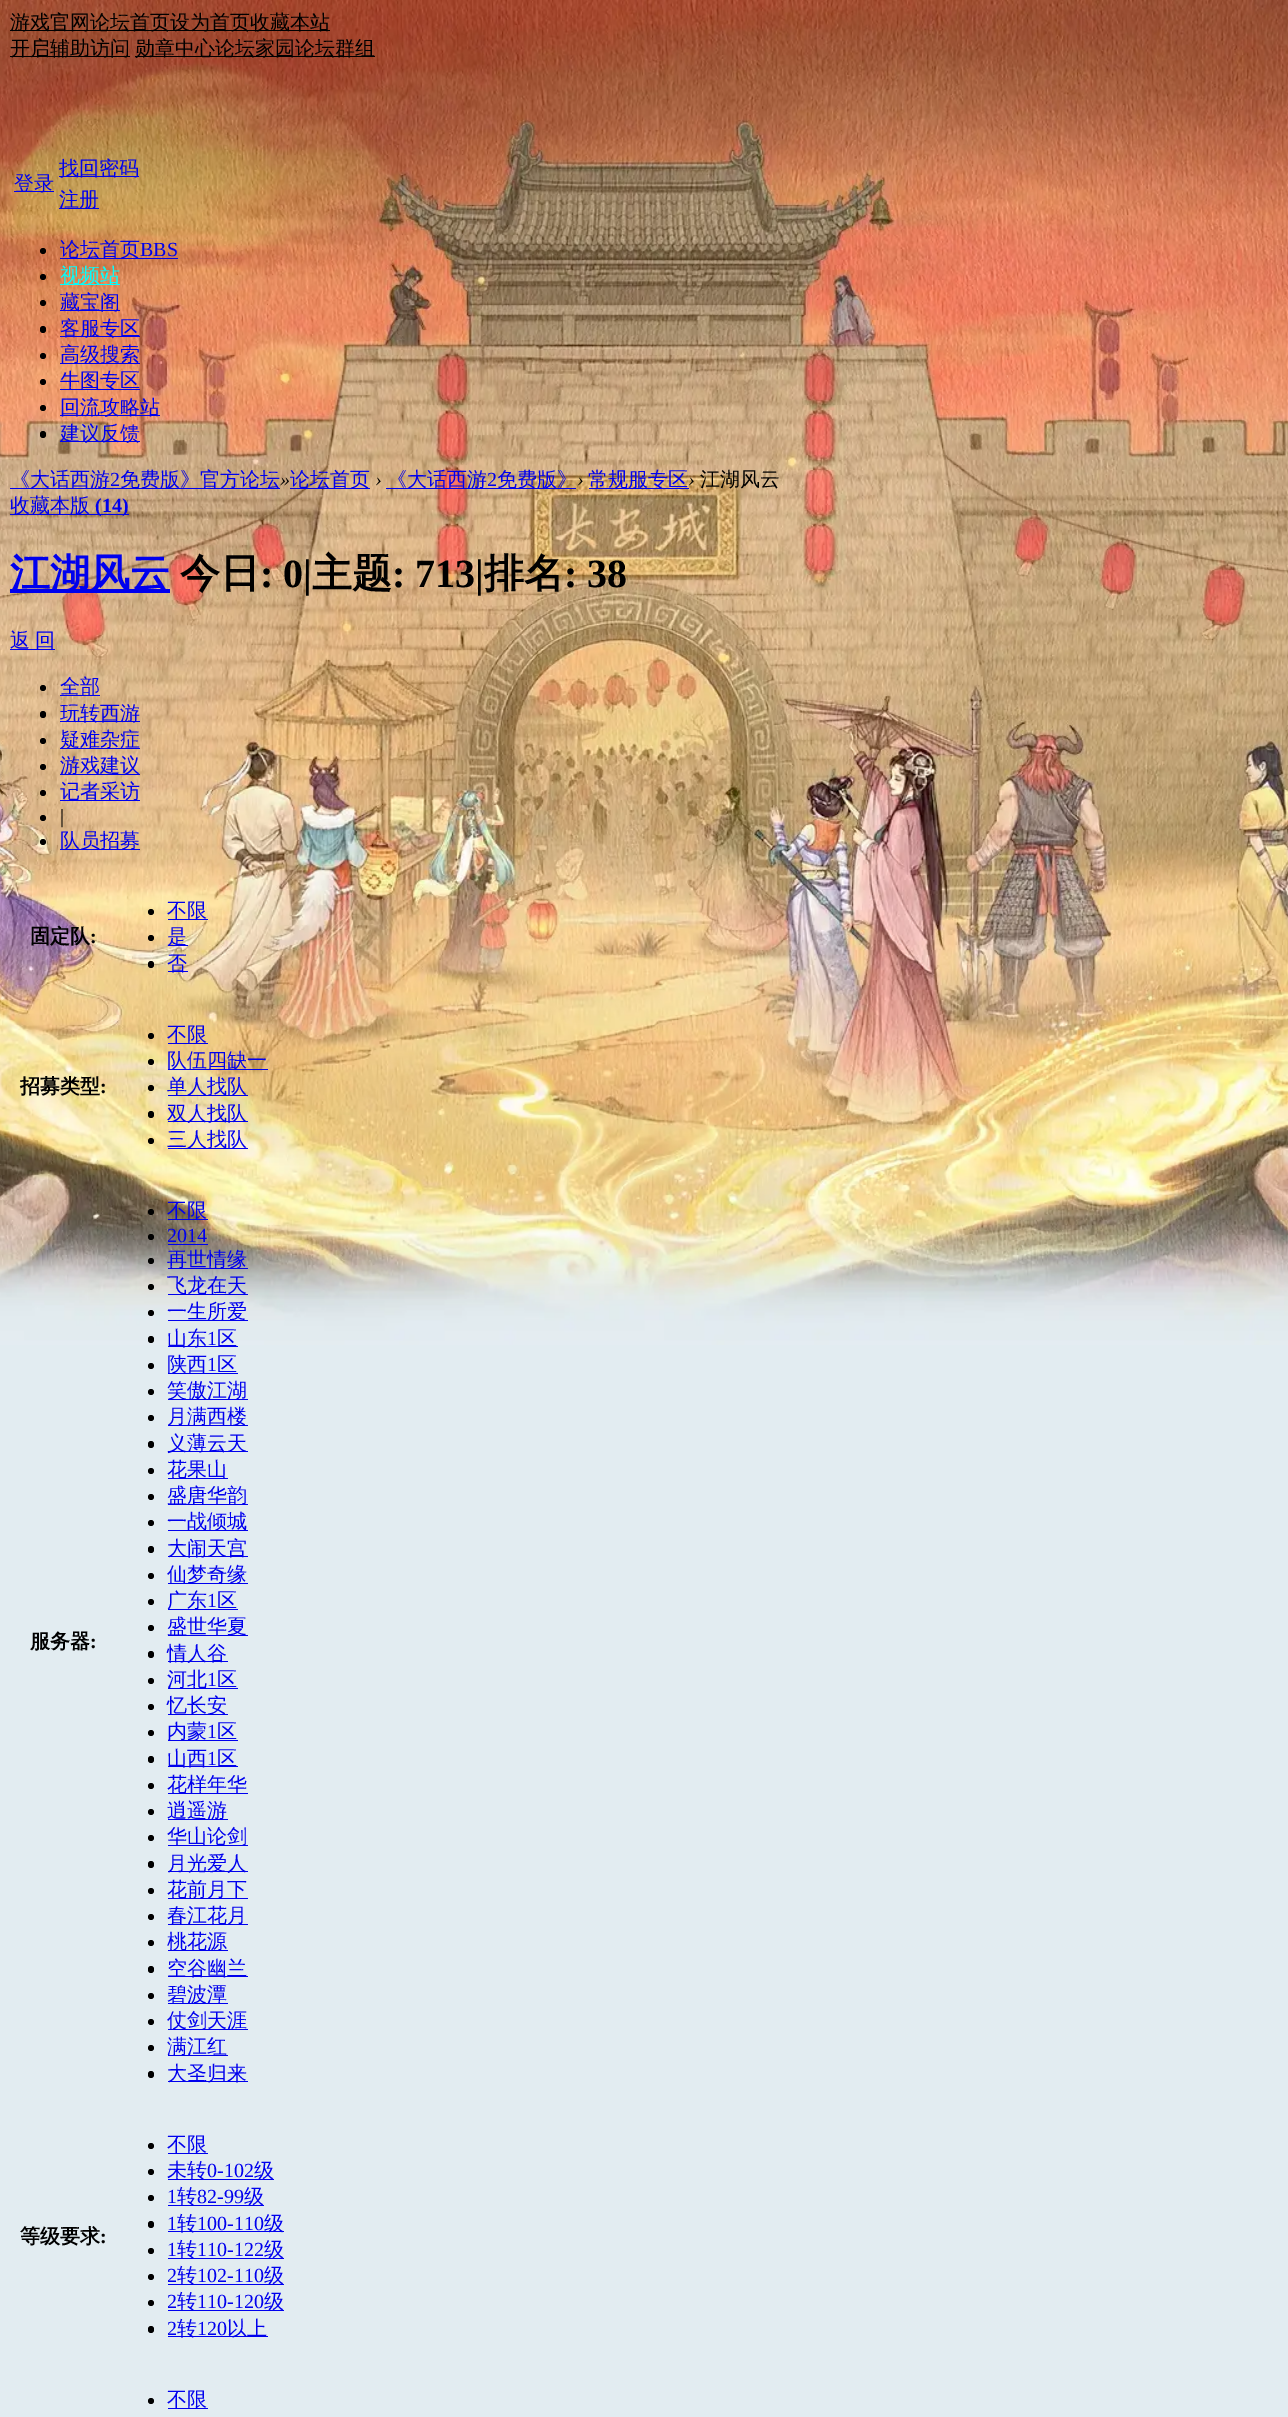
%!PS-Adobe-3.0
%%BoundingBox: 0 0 1288 2417
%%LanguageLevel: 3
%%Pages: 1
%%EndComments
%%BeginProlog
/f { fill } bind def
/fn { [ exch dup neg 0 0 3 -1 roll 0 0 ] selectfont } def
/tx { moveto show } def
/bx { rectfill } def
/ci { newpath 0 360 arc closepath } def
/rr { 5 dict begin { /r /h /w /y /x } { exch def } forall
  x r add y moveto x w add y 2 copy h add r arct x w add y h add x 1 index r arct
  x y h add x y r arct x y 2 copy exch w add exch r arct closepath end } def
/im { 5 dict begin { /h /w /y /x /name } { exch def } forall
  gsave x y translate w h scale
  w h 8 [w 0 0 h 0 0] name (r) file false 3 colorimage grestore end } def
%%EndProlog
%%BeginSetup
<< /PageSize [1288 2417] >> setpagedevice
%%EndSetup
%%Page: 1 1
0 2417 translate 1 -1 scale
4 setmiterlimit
0.886 0.925 0.945 setrgbcolor
0 0 1288 2417 bx
(image0.raw) 0 0 1288 1345 im
0 setgray
10 30 320 1 bx
/WenQuanYiZenHei-Medium 20 fn
(游戏官网论坛首页设为首页收藏本站) 10 29 tx
10 56 120 1 bx
(开启辅助访问) 10 55 tx
135 56 240 1 bx
(勋章中心论坛家园论坛群组) 135 55 tx
0 0 0.933 setrgbcolor
59 176 80 1 bx
(找回密码) 59 175 tx
14 191 40 1 bx
(登录) 14 190 tx
59 208 40 1 bx
(注册) 59 206 tx
0 setgray
43 251 3 ci f
0 0 0.933 setrgbcolor
60 258 118 1 bx
(论坛首页) 60 256 tx
/LiberationSerif-Regular 20 fn
(BBS) 140 256 tx
0 setgray
43 277 3 ci f
0 1 1 setrgbcolor
60 284 60 1 bx
/WenQuanYiZenHei-Medium 20 fn
(视频站) 60 282 tx
0 setgray
43 303 3 ci f
0 0 0.933 setrgbcolor
60 310 60 1 bx
(藏宝阁) 60 309 tx
0 setgray
40 326 6 7 3 rr f
0 0 0.933 setrgbcolor
60 336 80 1 bx
(客服专区) 60 335 tx
0 setgray
43 356 3 ci f
0 0 0.933 setrgbcolor
60 363 80 1 bx
(高级搜索) 60 361 tx
0 setgray
43 382 3 ci f
0 0 0.933 setrgbcolor
60 389 80 1 bx
(牛图专区) 60 387 tx
0 setgray
43 408 3 ci f
0 0 0.933 setrgbcolor
60 415 100 1 bx
(回流攻略站) 60 414 tx
0 setgray
40 431 6 7 3 rr f
0 0 0.933 setrgbcolor
60 441 80 1 bx
(建议反馈) 60 440 tx
10 488 270 1 bx
(《大话西游) 10 486 tx
/LiberationSerif-Regular 20 fn
(2) 110 486 tx
/WenQuanYiZenHei-Medium 20 fn
(免费版》官方论坛) 120 486 tx
/LiberationSerif-Italic 20 fn
0 setgray
(») 280 486 tx
0 0 0.933 setrgbcolor
290 488 80 1 bx
/WenQuanYiZenHei-Medium 20 fn
(论坛首页) 290 486 tx
/LiberationSerif-Italic 20 fn
0 setgray
(›) 375 486 tx
0 0 0.933 setrgbcolor
386 488 190 1 bx
/WenQuanYiZenHei-Medium 20 fn
(《大话西游) 387 486 tx
/LiberationSerif-Regular 20 fn
(2) 487 486 tx
/WenQuanYiZenHei-Medium 20 fn
(免费版》) 497 486 tx
/LiberationSerif-Italic 20 fn
0 setgray
(›) 577 486 tx
0 0 0.933 setrgbcolor
589 488 100 1 bx
/WenQuanYiZenHei-Medium 20 fn
(常规服专区) 588 486 tx
/LiberationSerif-Italic 20 fn
0 setgray
(›) 688 486 tx
/WenQuanYiZenHei-Medium 20 fn
(江湖风云) 700 486 tx
0 0 0.933 setrgbcolor
10 514 91 1 bx
(收藏本版) 10 512 tx
/LiberationSerif-Bold 20 fn
(\(14) 95 512 tx
101 514 28 1 bx
(\)) 122 512 tx
10 589 160 4 bx
/WenQuanYiZenHei-Bold 40 fn
(江湖风云) 10 587 tx
0 setgray
(今日) 180 587 tx
/LiberationSerif-Bold 40 fn
(: 0|) 260 587 tx
/WenQuanYiZenHei-Bold 40 fn
(主题) 312 587 tx
/LiberationSerif-Bold 40 fn
(: 713|) 392 587 tx
/WenQuanYiZenHei-Bold 40 fn
(排名) 484 587 tx
/LiberationSerif-Bold 40 fn
(: 38) 564 587 tx
/WenQuanYiZenHei-Medium 20 fn
0 0 0.933 setrgbcolor
(返) 10 647 tx
10 649 45 1 bx
(回) 35 647 tx
0 setgray
43 688 3 ci f
0 0 0.933 setrgbcolor
60 695 40 1 bx
(全部) 60 693 tx
0 setgray
40 711 6 7 3 rr f
0 0 0.933 setrgbcolor
60 721 80 1 bx
(玩转西游) 60 720 tx
0 setgray
43 741 3 ci f
0 0 0.933 setrgbcolor
60 748 80 1 bx
(疑难杂症) 60 746 tx
0 setgray
43 767 3 ci f
0 0 0.933 setrgbcolor
60 774 80 1 bx
(游戏建议) 60 772 tx
0 setgray
43 793 3 ci f
0 0 0.933 setrgbcolor
60 800 80 1 bx
(记者采访) 60 798 tx
0 setgray
43 818 3 ci f
/LiberationSerif-Regular 20 fn
(|) 60 823 tx
43 842 3 ci f
0 0 0.933 setrgbcolor
60 849 80 1 bx
/WenQuanYiZenHei-Medium 20 fn
(队员招募) 60 847 tx
/WenQuanYiZenHei-Bold 20 fn
0 setgray
(固定队) 30 943 tx
/LiberationSerif-Bold 20 fn
(:) 90 943 tx
151 912 3 ci f
0 0 0.933 setrgbcolor
168 919 40 1 bx
/WenQuanYiZenHei-Medium 20 fn
(不限) 167 917 tx
0 setgray
151 938 3 ci f
0 0 0.933 setrgbcolor
168 945 20 1 bx
(是) 167 943 tx
0 setgray
148 961 6 7 3 rr f
0 0 0.933 setrgbcolor
168 971 20 1 bx
(否) 167 970 tx
/WenQuanYiZenHei-Bold 20 fn
0 setgray
(招募类型) 20 1093 tx
/LiberationSerif-Bold 20 fn
(:) 100 1093 tx
151 1036 3 ci f
0 0 0.933 setrgbcolor
168 1043 40 1 bx
/WenQuanYiZenHei-Medium 20 fn
(不限) 167 1041 tx
0 setgray
151 1062 3 ci f
0 0 0.933 setrgbcolor
168 1069 100 1 bx
(队伍四缺一) 167 1067 tx
0 setgray
151 1088 3 ci f
0 0 0.933 setrgbcolor
168 1095 80 1 bx
(单人找队) 167 1093 tx
0 setgray
148 1111 6 7 3 rr f
0 0 0.933 setrgbcolor
168 1121 80 1 bx
(双人找队) 167 1120 tx
0 setgray
151 1141 3 ci f
0 0 0.933 setrgbcolor
168 1148 80 1 bx
(三人找队) 167 1146 tx
/WenQuanYiZenHei-Bold 20 fn
0 setgray
(服务器) 30 1648 tx
/LiberationSerif-Bold 20 fn
(:) 90 1648 tx
151 1212 3 ci f
0 0 0.933 setrgbcolor
168 1219 40 1 bx
/WenQuanYiZenHei-Medium 20 fn
(不限) 167 1217 tx
0 setgray
151 1237 3 ci f
/LiberationSerif-Regular 20 fn
0 0 0.933 setrgbcolor
(2014) 167 1242 tx
168 1244 40 1 bx
0 setgray
151 1261 3 ci f
0 0 0.933 setrgbcolor
168 1268 80 1 bx
/WenQuanYiZenHei-Medium 20 fn
(再世情缘) 167 1266 tx
0 setgray
151 1287 3 ci f
0 0 0.933 setrgbcolor
168 1294 80 1 bx
(飞龙在天) 167 1292 tx
0 setgray
151 1313 3 ci f
0 0 0.933 setrgbcolor
168 1320 80 1 bx
(一生所爱) 167 1318 tx
0 setgray
148 1336 6 7 3 rr f
0 0 0.933 setrgbcolor
168 1346 70 1 bx
(山东) 167 1345 tx
/LiberationSerif-Regular 20 fn
(1) 207 1345 tx
/WenQuanYiZenHei-Medium 20 fn
(区) 217 1345 tx
0 setgray
151 1366 3 ci f
0 0 0.933 setrgbcolor
168 1373 70 1 bx
(陕西) 167 1371 tx
/LiberationSerif-Regular 20 fn
(1) 207 1371 tx
/WenQuanYiZenHei-Medium 20 fn
(区) 217 1371 tx
0 setgray
151 1392 3 ci f
0 0 0.933 setrgbcolor
168 1399 80 1 bx
(笑傲江湖) 167 1397 tx
0 setgray
151 1418 3 ci f
0 0 0.933 setrgbcolor
168 1425 80 1 bx
(月满西楼) 167 1423 tx
0 setgray
148 1441 6 7 3 rr f
0 0 0.933 setrgbcolor
168 1451 80 1 bx
(义薄云天) 167 1450 tx
0 setgray
151 1471 3 ci f
0 0 0.933 setrgbcolor
168 1478 60 1 bx
(花果山) 167 1476 tx
0 setgray
151 1497 3 ci f
0 0 0.933 setrgbcolor
168 1504 80 1 bx
(盛唐华韵) 167 1502 tx
0 setgray
151 1523 3 ci f
0 0 0.933 setrgbcolor
168 1530 80 1 bx
(一战倾城) 167 1528 tx
0 setgray
148 1546 6 7 3 rr f
0 0 0.933 setrgbcolor
168 1556 80 1 bx
(大闹天宫) 167 1555 tx
0 setgray
151 1576 3 ci f
0 0 0.933 setrgbcolor
168 1583 80 1 bx
(仙梦奇缘) 167 1581 tx
0 setgray
151 1602 3 ci f
0 0 0.933 setrgbcolor
168 1609 70 1 bx
(广东) 167 1607 tx
/LiberationSerif-Regular 20 fn
(1) 207 1607 tx
/WenQuanYiZenHei-Medium 20 fn
(区) 217 1607 tx
0 setgray
151 1628 3 ci f
0 0 0.933 setrgbcolor
168 1635 80 1 bx
(盛世华夏) 167 1633 tx
0 setgray
148 1651 6 7 3 rr f
0 0 0.933 setrgbcolor
168 1661 60 1 bx
(情人谷) 167 1660 tx
0 setgray
151 1681 3 ci f
0 0 0.933 setrgbcolor
168 1688 70 1 bx
(河北) 167 1686 tx
/LiberationSerif-Regular 20 fn
(1) 207 1686 tx
/WenQuanYiZenHei-Medium 20 fn
(区) 217 1686 tx
0 setgray
151 1707 3 ci f
0 0 0.933 setrgbcolor
168 1714 60 1 bx
(忆长安) 167 1712 tx
0 setgray
151 1733 3 ci f
0 0 0.933 setrgbcolor
168 1740 70 1 bx
(内蒙) 167 1738 tx
/LiberationSerif-Regular 20 fn
(1) 207 1738 tx
/WenQuanYiZenHei-Medium 20 fn
(区) 217 1738 tx
0 setgray
148 1756 6 7 3 rr f
0 0 0.933 setrgbcolor
168 1766 70 1 bx
(山西) 167 1765 tx
/LiberationSerif-Regular 20 fn
(1) 207 1765 tx
/WenQuanYiZenHei-Medium 20 fn
(区) 217 1765 tx
0 setgray
151 1786 3 ci f
0 0 0.933 setrgbcolor
168 1793 80 1 bx
(花样年华) 167 1791 tx
0 setgray
151 1812 3 ci f
0 0 0.933 setrgbcolor
168 1819 60 1 bx
(逍遥游) 167 1817 tx
0 setgray
151 1838 3 ci f
0 0 0.933 setrgbcolor
168 1845 80 1 bx
(华山论剑) 167 1843 tx
0 setgray
148 1861 6 7 3 rr f
0 0 0.933 setrgbcolor
168 1871 80 1 bx
(月光爱人) 167 1870 tx
0 setgray
151 1891 3 ci f
0 0 0.933 setrgbcolor
168 1898 80 1 bx
(花前月下) 167 1896 tx
0 setgray
151 1917 3 ci f
0 0 0.933 setrgbcolor
168 1924 80 1 bx
(春江花月) 167 1922 tx
0 setgray
151 1943 3 ci f
0 0 0.933 setrgbcolor
168 1950 60 1 bx
(桃花源) 167 1948 tx
0 setgray
148 1966 6 7 3 rr f
0 0 0.933 setrgbcolor
168 1976 80 1 bx
(空谷幽兰) 167 1975 tx
0 setgray
151 1996 3 ci f
0 0 0.933 setrgbcolor
168 2003 60 1 bx
(碧波潭) 167 2001 tx
0 setgray
151 2022 3 ci f
0 0 0.933 setrgbcolor
168 2029 80 1 bx
(仗剑天涯) 167 2027 tx
0 setgray
151 2048 3 ci f
0 0 0.933 setrgbcolor
168 2055 60 1 bx
(满江红) 167 2053 tx
0 setgray
148 2071 6 7 3 rr f
0 0 0.933 setrgbcolor
168 2081 80 1 bx
(大圣归来) 167 2080 tx
/WenQuanYiZenHei-Bold 20 fn
0 setgray
(等级要求) 20 2243 tx
/LiberationSerif-Bold 20 fn
(:) 100 2243 tx
151 2146 3 ci f
0 0 0.933 setrgbcolor
168 2153 40 1 bx
/WenQuanYiZenHei-Medium 20 fn
(不限) 167 2151 tx
0 setgray
151 2172 3 ci f
0 0 0.933 setrgbcolor
168 2179 106 1 bx
(未转) 167 2177 tx
/LiberationSerif-Regular 20 fn
(0-102) 207 2177 tx
/WenQuanYiZenHei-Medium 20 fn
(级) 254 2177 tx
0 setgray
151 2198 3 ci f
/LiberationSerif-Regular 20 fn
0 0 0.933 setrgbcolor
(1) 167 2203 tx
168 2205 96 1 bx
/WenQuanYiZenHei-Medium 20 fn
(转) 177 2203 tx
/LiberationSerif-Regular 20 fn
(82-99) 197 2203 tx
/WenQuanYiZenHei-Medium 20 fn
(级) 244 2203 tx
0 setgray
148 2221 6 7 3 rr f
/LiberationSerif-Regular 20 fn
0 0 0.933 setrgbcolor
(1) 167 2230 tx
168 2231 116 1 bx
/WenQuanYiZenHei-Medium 20 fn
(转) 177 2230 tx
/LiberationSerif-Regular 20 fn
(100-110) 197 2230 tx
/WenQuanYiZenHei-Medium 20 fn
(级) 264 2230 tx
0 setgray
151 2251 3 ci f
/LiberationSerif-Regular 20 fn
0 0 0.933 setrgbcolor
(1) 167 2256 tx
168 2258 116 1 bx
/WenQuanYiZenHei-Medium 20 fn
(转) 177 2256 tx
/LiberationSerif-Regular 20 fn
(110-122) 197 2256 tx
/WenQuanYiZenHei-Medium 20 fn
(级) 264 2256 tx
0 setgray
151 2277 3 ci f
/LiberationSerif-Regular 20 fn
0 0 0.933 setrgbcolor
(2) 167 2282 tx
168 2284 116 1 bx
/WenQuanYiZenHei-Medium 20 fn
(转) 177 2282 tx
/LiberationSerif-Regular 20 fn
(102-110) 197 2282 tx
/WenQuanYiZenHei-Medium 20 fn
(级) 264 2282 tx
0 setgray
151 2303 3 ci f
/LiberationSerif-Regular 20 fn
0 0 0.933 setrgbcolor
(2) 167 2308 tx
168 2310 116 1 bx
/WenQuanYiZenHei-Medium 20 fn
(转) 177 2308 tx
/LiberationSerif-Regular 20 fn
(110-120) 197 2308 tx
/WenQuanYiZenHei-Medium 20 fn
(级) 264 2308 tx
0 setgray
148 2326 6 7 3 rr f
/LiberationSerif-Regular 20 fn
0 0 0.933 setrgbcolor
(2) 167 2335 tx
168 2336 100 1 bx
/WenQuanYiZenHei-Medium 20 fn
(转) 177 2335 tx
/LiberationSerif-Regular 20 fn
(120) 197 2335 tx
/WenQuanYiZenHei-Medium 20 fn
(以上) 227 2335 tx
0 setgray
151 2401 3 ci f
0 0 0.933 setrgbcolor
168 2408 40 1 bx
(不限) 167 2406 tx
showpage
%%EOF
